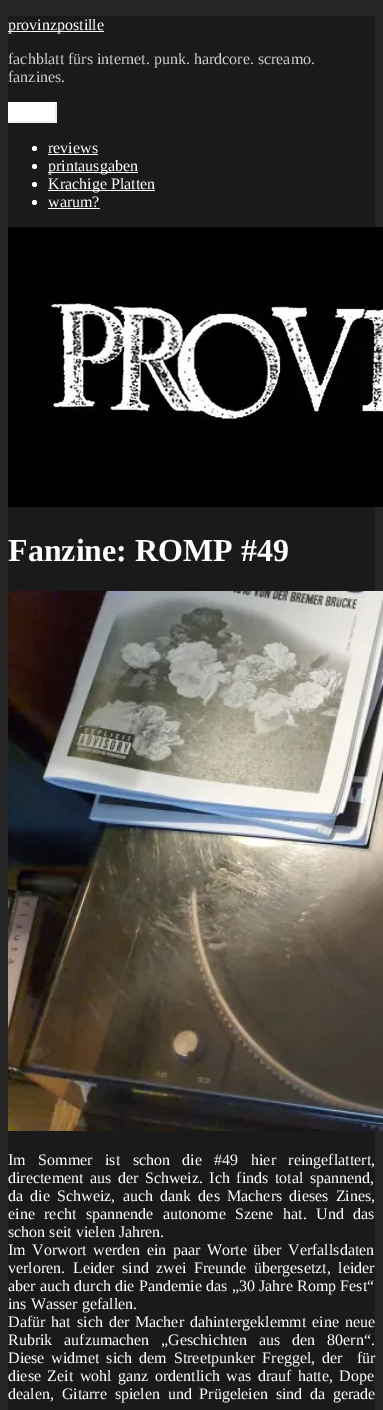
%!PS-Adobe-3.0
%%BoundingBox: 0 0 383 1410
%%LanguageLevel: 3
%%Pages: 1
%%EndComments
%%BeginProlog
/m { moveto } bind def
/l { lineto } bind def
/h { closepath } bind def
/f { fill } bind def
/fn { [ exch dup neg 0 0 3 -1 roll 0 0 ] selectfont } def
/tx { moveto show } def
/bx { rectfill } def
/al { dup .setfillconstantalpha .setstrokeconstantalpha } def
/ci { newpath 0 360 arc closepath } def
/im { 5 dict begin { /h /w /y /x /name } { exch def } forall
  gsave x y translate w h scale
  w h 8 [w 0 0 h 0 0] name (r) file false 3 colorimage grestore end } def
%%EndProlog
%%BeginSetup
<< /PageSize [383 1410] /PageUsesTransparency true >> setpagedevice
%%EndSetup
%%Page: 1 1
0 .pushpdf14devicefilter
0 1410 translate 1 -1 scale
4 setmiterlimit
0.149 setgray
0 0 383 1410 bx
0.102 setgray
8 16 367 1394 bx
1 setgray
8 31 96 1 bx
/LiberationSerif-Regular 16 fn
(provinzpostille) 8 30 tx
0.8 setgray
(fachblatt fürs internet. punk. hardcore. screamo.) 8 64 tx
(fanzines.) 8 82 tx
1 setgray
8 102 49 21 bx
0.933 setgray
57 102 m 57 123 l 55 121 l 55 104 l h f
0.2 al
0.667 setgray
57 123 m 8 123 l 10 121 l 55 121 l h f
1 al
1 setgray
34.5 148.5 2.5 ci f
(reviews) 48 153 tx
48 154 50 1 bx
34.5 166.5 2.5 ci f
48 172 90 1 bx
(printausgaben) 48 171 tx
34.5 184.5 2.5 ci f
48 190 107 1 bx
(Krachige Platten) 48 189 tx
34.5 202.5 2.5 ci f
(warum?) 48 207 tx
48 208 52 1 bx
(image0.raw) 8 227 375 280 im
/LiberationSerif-Bold 32 fn
(Fanzine: ROMP #49) 8 561 tx
(image1.raw) 8 591 375 540 im
/LiberationSerif-Regular 16 fn
8 1165 m 8.5 0 32 (Im Sommer ist schon die #49 hier reingeflattert,) widthshow
8 1183 m 2.5 0 32 (directement aus der Schweiz. Ich finds total spannend,) widthshow
8 1201 m 3.25 0 32 (da die Schweiz, auch dank des Machers dieses Zines,) widthshow
8 1219 m 5.5 0 32 (eine recht spannende autonome Szene hat. Und das) widthshow
(schon seit vielen Jahren.) 8 1237 tx
8 1255 m 2.5 0 32 (Im Vorwort werden ein paar Worte über Verfallsdaten) widthshow
8 1273 m 3.5 0 32 (verloren. Leider sind zwei Freunde übergesetzt, leider) widthshow
8 1291 m 0.25 0 32 (aber auch durch die Pandemie das „30 Jahre Romp Fest“) widthshow
(ins Wasser gefallen.) 8 1309 tx
8 1327 m 2 0 32 (Dafür hat sich der Macher dahintergeklemmt eine neue) widthshow
8 1345 m 7.75 0 32 (Rubrik aufzumachen „Geschichten aus den 80ern“.) widthshow
8 1363 m 3 0 32 (Diese widmet sich dem Streetpunker Freggel, der  für) widthshow
8 1381 m 2.5 0 32 (diese Zeit wohl ganz ordentlich was drauf hatte, Dope) widthshow
8 1399 m 3.75 0 32 (dealen, Gitarre spielen und Prügeleien sind da gerade) widthshow
.poppdf14devicefilter showpage
%%EOF
